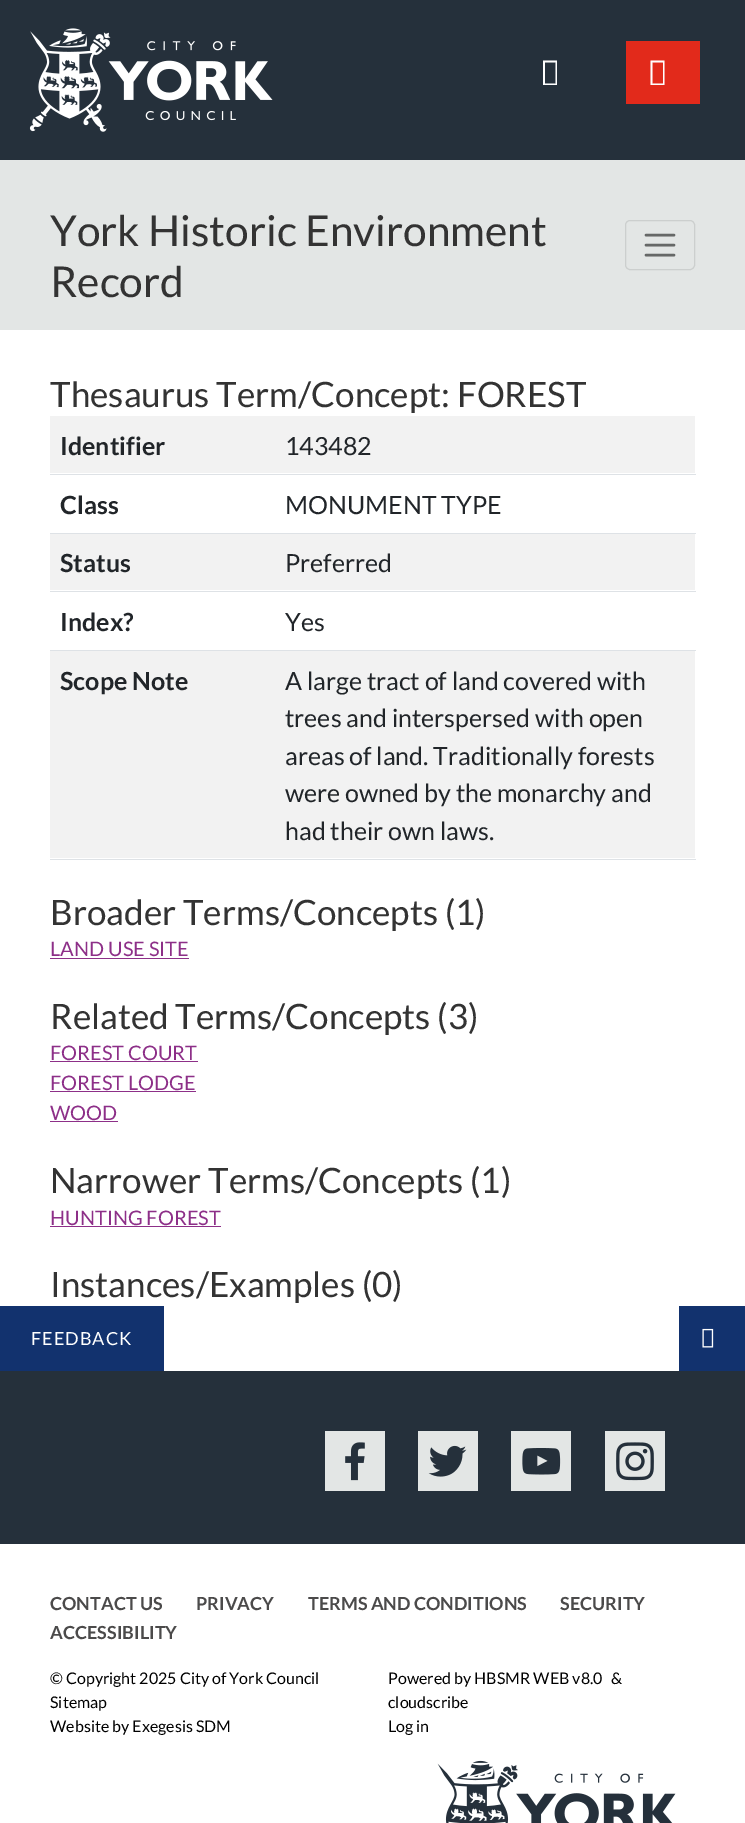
%!PS-Adobe-3.0
%%BoundingBox: 0 0 745 1823
%%LanguageLevel: 3
%%Pages: 1
%%EndComments
%%BeginProlog
/m { moveto } bind def
/l { lineto } bind def
/h { closepath } bind def
/f { fill } bind def
/S { stroke } bind def
/w { setlinewidth } bind def
/fn { [ exch dup neg 0 0 3 -1 roll 0 0 ] selectfont } def
/tx { moveto show } def
/bx { rectfill } def
/rr { 5 dict begin { /r /h /w /y /x } { exch def } forall
  x r add y moveto x w add y 2 copy h add r arct x w add y h add x 1 index r arct
  x y h add x y r arct x y 2 copy exch w add exch r arct closepath end } def
/im { 5 dict begin { /h /w /y /x /name } { exch def } forall
  gsave x y translate w h scale
  w h 8 [w 0 0 h 0 0] name (r) file false 3 colorimage grestore end } def
%%EndProlog
%%BeginSetup
<< /PageSize [745 1823] >> setpagedevice
%%EndSetup
%%Page: 1 1
0 1823 translate 1 -1 scale
4 setmiterlimit
1 setgray
0 0 745 1823 bx
0.145 0.188 0.231 setrgbcolor
0 0 745 160 bx
(image0.raw) 29 28 244 104 im
1 setgray
543 85 m 543 60.5 l 557 60.5 l 557 85 l h 545 83.5 m 555.5 83.5 l 555.5 62.5 l 545 62.5 l h f
0.886 0.165 0.106 setrgbcolor
626 41 74 63 bx
1 setgray
650.5 85 m 650.5 60.5 l 664.5 60.5 l 664.5 85 l h 652.5 83.5 m 663 83.5 l 663 62.5 l 652.5 62.5 l h f
0.89 0.902 0.898 setrgbcolor
0 160 745 170 bx
/Lato-Regular 42.5 fn
0.2 setgray
(York Historic Environment) 50 246 tx
(Record) 50 297 tx
0.8 0.812 0.808 setrgbcolor
625.5 220.5 69 49 4.5 rr S
0.4 0.408 0.404 setrgbcolor
2.5 w
1 setlinecap
646 235 m 674 235 l 646 245 m 674 245 l 646 255 m 674 255 l S
/Lato-Regular 35 fn
0.2 setgray
(Thesaurus Term/Concept: FOREST) 50 407 tx
0.949 setgray
50 416 645 57 bx
/Lato-Bold 25 fn
0.129 0.145 0.161 setrgbcolor
(Identifier) 60 455 tx
0.871 0.886 0.902 setrgbcolor
50 474 646 1 bx
/Lato-Regular 25 fn
0.129 0.145 0.161 setrgbcolor
(143482) 285 455 tx
/Lato-Bold 25 fn
(Class) 60 514 tx
0.871 0.886 0.902 setrgbcolor
50 533 646 1 bx
/Lato-Regular 25 fn
0.129 0.145 0.161 setrgbcolor
(MONUMENT TYPE) 285 514 tx
0.949 setgray
50 534 645 56 bx
/Lato-Bold 25 fn
0.129 0.145 0.161 setrgbcolor
(Status) 60 572 tx
0.871 0.886 0.902 setrgbcolor
50 591 646 1 bx
/Lato-Regular 25 fn
0.129 0.145 0.161 setrgbcolor
(Preferred) 285 572 tx
/Lato-Bold 25 fn
(Index?) 60 631 tx
0.871 0.886 0.902 setrgbcolor
50 650 646 1 bx
/Lato-Regular 25 fn
0.129 0.145 0.161 setrgbcolor
(Yes) 285 631 tx
0.949 setgray
50 651 645 207 bx
/Lato-Bold 25 fn
0.129 0.145 0.161 setrgbcolor
(Scope Note) 60 690 tx
0.871 0.886 0.902 setrgbcolor
50 859 646 1 bx
/Lato-Regular 25 fn
0.129 0.145 0.161 setrgbcolor
(A large tract of land covered with) 285 690 tx
(trees and interspersed with open) 285 727 tx
(areas of land. Traditionally forests) 285 765 tx
(were owned by the monarchy and) 285 802 tx
(had their own laws.) 285 840 tx
/Lato-Regular 35 fn
0.2 setgray
(Broader Terms/Concepts \(1\)) 50 925 tx
/Lato-Regular 20 fn
0.553 0.184 0.533 setrgbcolor
(LAND USE SITE) 50 956 tx
50 958 139 1 bx
/Lato-Regular 35 fn
0.2 setgray
(Related Terms/Concepts \(3\)) 50 1029 tx
/Lato-Regular 20 fn
0.553 0.184 0.533 setrgbcolor
(FOREST COURT) 50 1060 tx
50 1061 148 1 bx
(FOREST LODGE) 50 1090 tx
50 1091 146 1 bx
(WOOD) 50 1120 tx
50 1121 68 1 bx
/Lato-Regular 35 fn
0.2 setgray
(Narrower Terms/Concepts \(1\)) 50 1193 tx
/Lato-Regular 20 fn
0.553 0.184 0.533 setrgbcolor
(HUNTING FOREST) 50 1225 tx
50 1226 171 1 bx
/Lato-Regular 35 fn
0.2 setgray
(Instances/Examples \(0\)) 50 1297 tx
0.071 0.196 0.431 setrgbcolor
0 1306 164 65 bx
/Lato-Regular 18 fn
1 setgray
31 1345 m 1 0 (FEEDBACK) ashow
0.071 0.196 0.431 setrgbcolor
679 1306 66 65 bx
(image1.raw) 702 1328 12 20 im
0.145 0.188 0.231 setrgbcolor
0 1371 745 173 bx
0.89 0.902 0.898 setrgbcolor
325 1431 60 60 bx
(image2.raw) 345 1442 20 39 im
418 1431 60 60 bx
(image3.raw) 428 1445 39 32 im
511 1431 60 60 bx
(image4.raw) 522 1448 39 27 im
605 1431 60 60 bx
(image5.raw) 616 1442 38 39 im
/Lato-Bold 18 fn
0.294 0.29 0.29 setrgbcolor
(CONTACT US) 50 1610 tx
(PRIVACY) 196 1610 tx
(TERMS AND CONDITIONS) 308 1610 tx
(SECURITY) 560 1610 tx
(ACCESSIBILITY) 50 1639 tx
/Lato-Regular 16 fn
0 setgray
(© Copyright 2025 City of York Council) 50 1684 tx
(Sitemap) 50 1708 tx
(Website by Exegesis SDM) 50 1732 tx
(Powered by HBSMR WEB v8.0) 388 1684 tx
(&) 611 1684 tx
(cloudscribe) 388 1708 tx
(Log in) 388 1732 tx
(image6.raw) 437 1760 239 63 im
showpage
%%EOF
